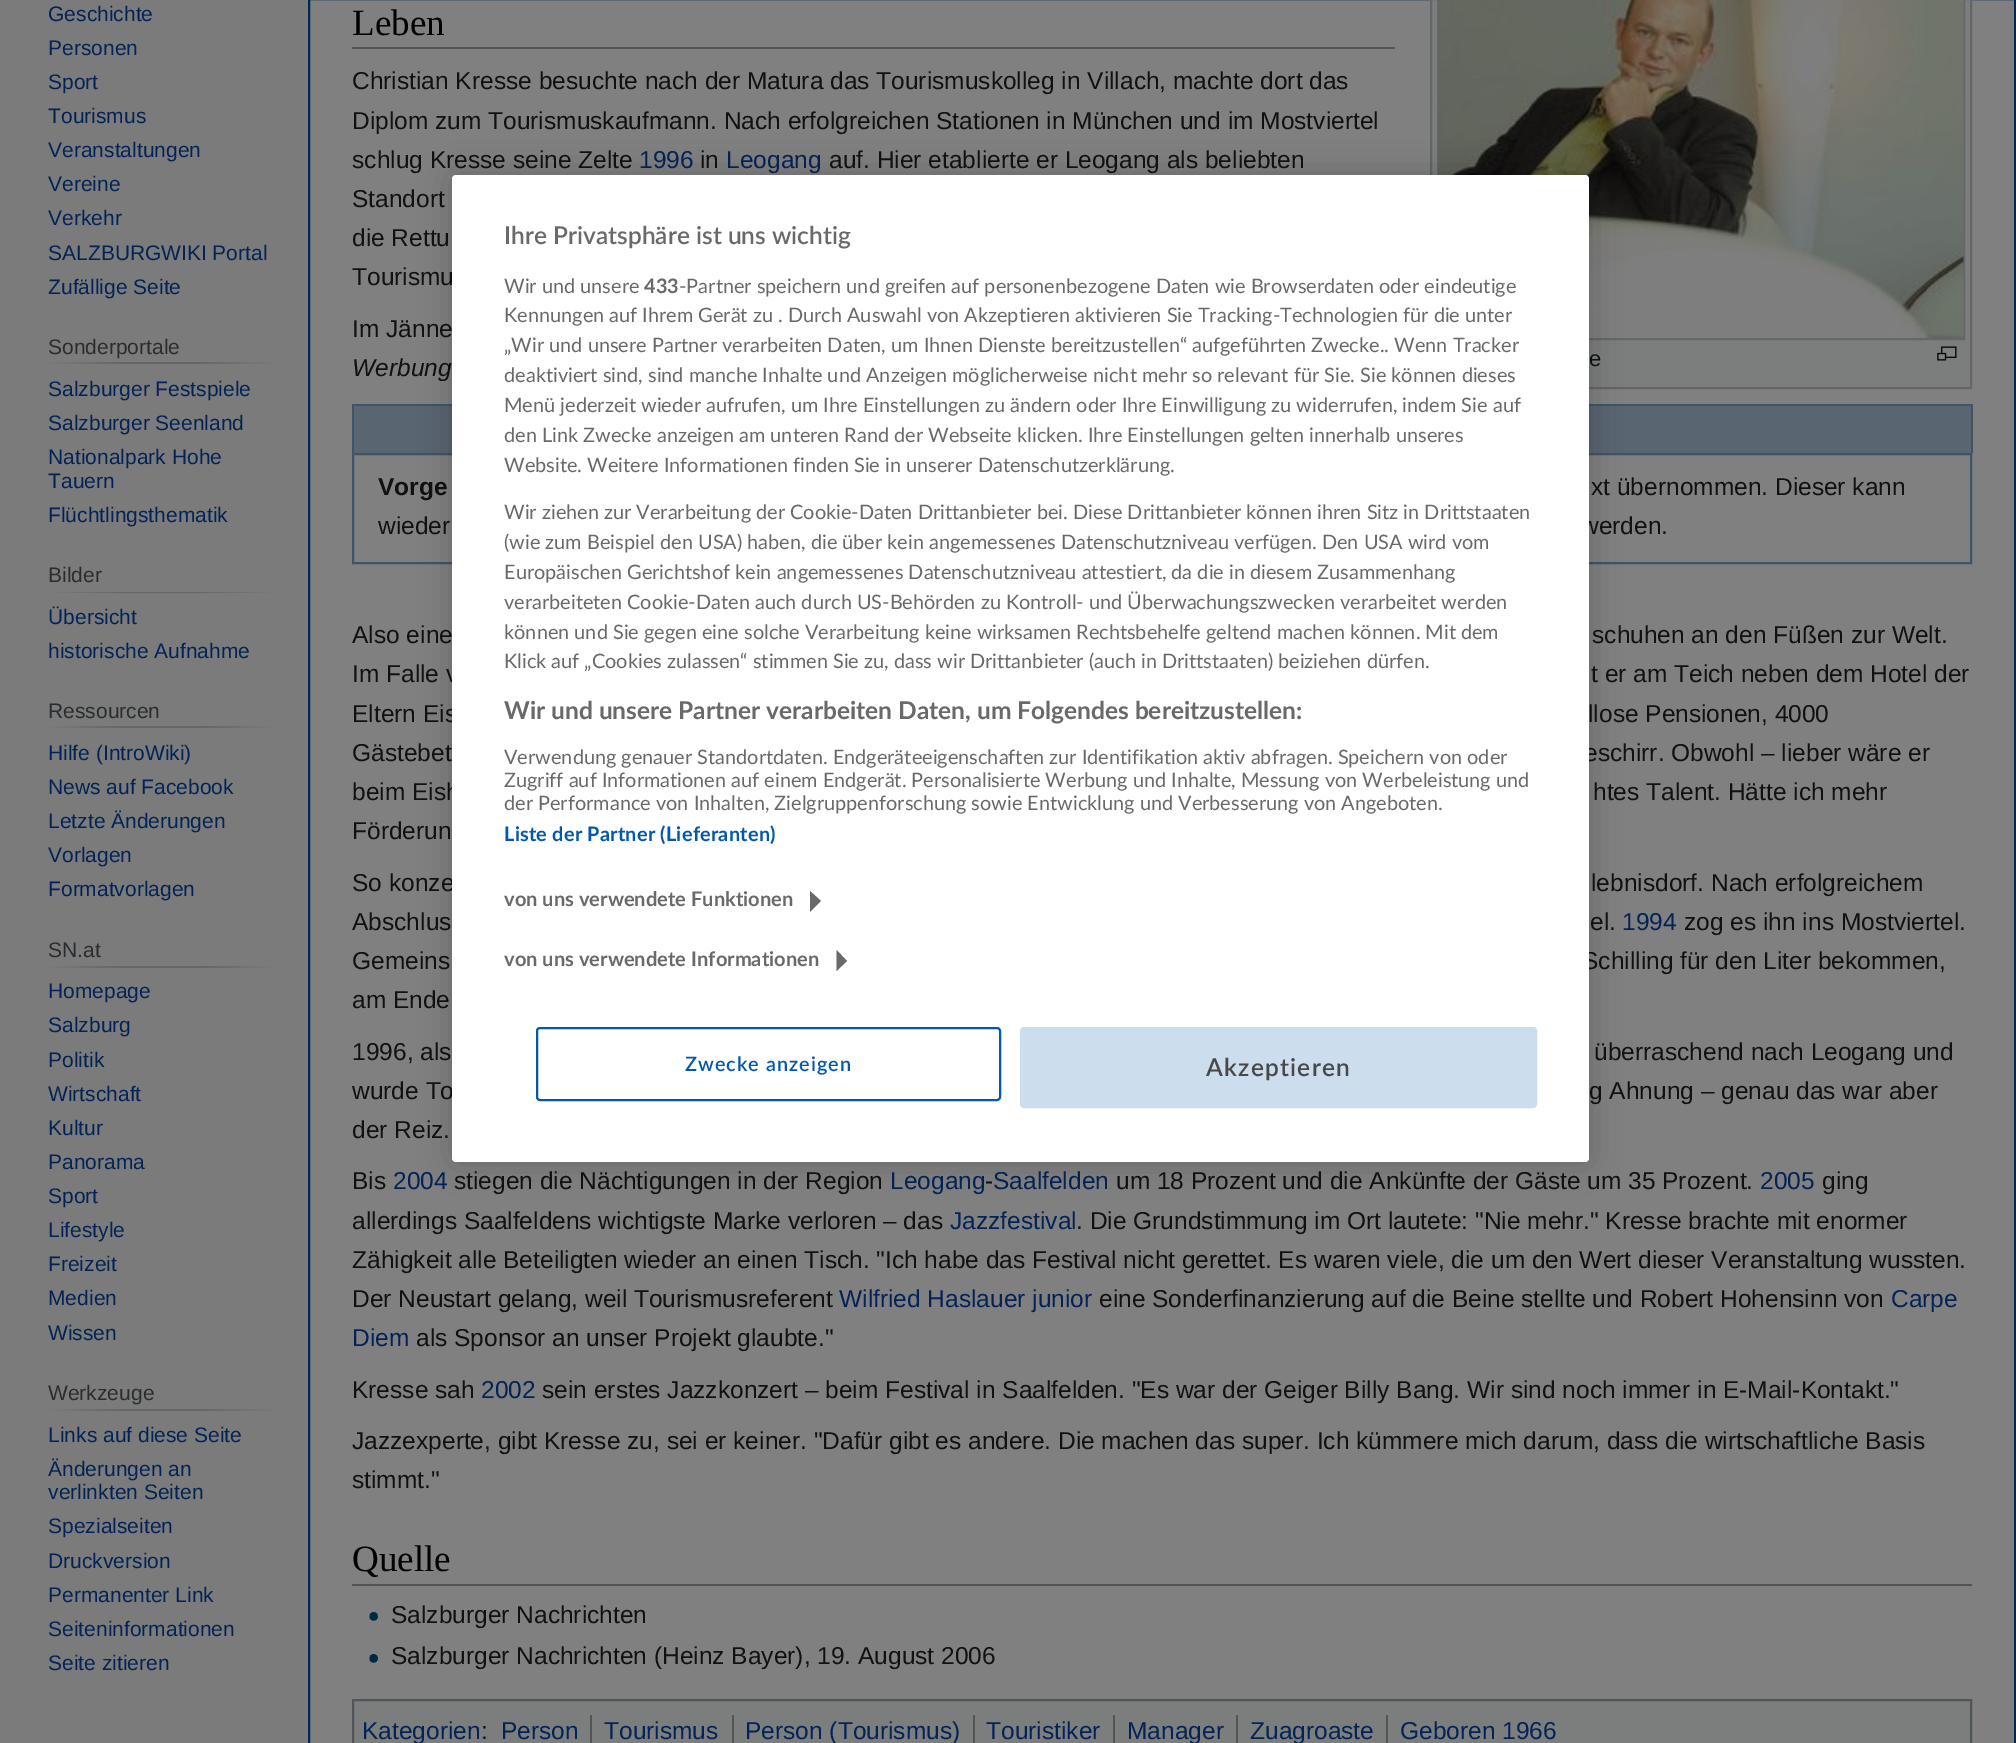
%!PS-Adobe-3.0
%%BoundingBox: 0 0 2016 1743
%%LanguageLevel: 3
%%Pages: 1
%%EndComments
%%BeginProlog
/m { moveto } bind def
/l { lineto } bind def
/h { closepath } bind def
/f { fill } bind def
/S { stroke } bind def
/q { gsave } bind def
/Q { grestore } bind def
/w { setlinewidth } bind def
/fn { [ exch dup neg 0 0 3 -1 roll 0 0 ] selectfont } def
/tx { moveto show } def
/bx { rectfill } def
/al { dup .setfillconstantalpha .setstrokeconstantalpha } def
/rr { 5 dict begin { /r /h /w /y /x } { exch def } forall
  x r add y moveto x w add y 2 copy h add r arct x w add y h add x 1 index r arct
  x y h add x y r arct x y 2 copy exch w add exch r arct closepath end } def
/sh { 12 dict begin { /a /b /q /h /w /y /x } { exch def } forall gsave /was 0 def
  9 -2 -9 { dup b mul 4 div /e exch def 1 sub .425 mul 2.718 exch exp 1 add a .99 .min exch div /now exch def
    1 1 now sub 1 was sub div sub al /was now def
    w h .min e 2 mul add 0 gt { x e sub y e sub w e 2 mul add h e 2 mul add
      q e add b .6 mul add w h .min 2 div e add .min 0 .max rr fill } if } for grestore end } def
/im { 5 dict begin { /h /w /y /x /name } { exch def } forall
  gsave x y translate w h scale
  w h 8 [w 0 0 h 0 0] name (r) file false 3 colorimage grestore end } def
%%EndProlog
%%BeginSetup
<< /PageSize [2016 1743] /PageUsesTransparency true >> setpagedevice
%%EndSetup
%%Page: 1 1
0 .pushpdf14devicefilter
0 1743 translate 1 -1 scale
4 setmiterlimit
0.482 setgray
0 0 2016 1743 bx
/LiberationSans-Regular 21 fn
0.012 0.137 0.341 setrgbcolor
(Geschichte) 48 21 tx
(Personen) 48 55 tx
(Sport) 48 89 tx
(Tourismus) 48 123 tx
(Veranstaltungen) 48 157 tx
(Vereine) 48 191 tx
(Verkehr) 48 225 tx
(SALZBURGWIKI Portal) 48 260 tx
(Zufällige Seite) 48 294 tx
q 47 362 m 277 362 l 277 364 l 47 364 l h clip newpath
<< /ShadingType 2 /ColorSpace /DeviceRGB /Coords [47 363 277 363] /Extend [true true] /Function << /FunctionType 3 /Domain [0 1] /Functions [<< /FunctionType 2 /Domain [0 1] /C0 [0.482 0.482 0.482] /C1 [0.392 0.4 0.412] /N 1 >> << /FunctionType 2 /Domain [0 1] /C0 [0.392 0.4 0.412] /C1 [0.392 0.4 0.412] /N 1 >> << /FunctionType 2 /Domain [0 1] /C0 [0.392 0.4 0.412] /C1 [0.482 0.482 0.482] /N 1 >>] /Bounds [0.33 0.66] /Encode [0 1 0 1 0 1] >> >> shfill Q
0.165 0.176 0.184 setrgbcolor
(Sonderportale) 48 354 tx
0.012 0.137 0.341 setrgbcolor
(Salzburger Festspiele) 48 396 tx
(Salzburger Seenland) 48 430 tx
(Nationalpark Hohe) 48 464 tx
(Tauern) 48 488 tx
(Flüchtlingsthematik) 48 522 tx
q 47 592 m 277 592 l 277 593 l 47 593 l h clip newpath
<< /ShadingType 2 /ColorSpace /DeviceRGB /Coords [47 592 277 592] /Extend [true true] /Function << /FunctionType 3 /Domain [0 1] /Functions [<< /FunctionType 2 /Domain [0 1] /C0 [0.482 0.482 0.482] /C1 [0.392 0.4 0.412] /N 1 >> << /FunctionType 2 /Domain [0 1] /C0 [0.392 0.4 0.412] /C1 [0.392 0.4 0.412] /N 1 >> << /FunctionType 2 /Domain [0 1] /C0 [0.392 0.4 0.412] /C1 [0.482 0.482 0.482] /N 1 >>] /Bounds [0.33 0.66] /Encode [0 1 0 1 0 1] >> >> shfill Q
0.165 0.176 0.184 setrgbcolor
(Bilder) 48 582 tx
0.012 0.137 0.341 setrgbcolor
(Übersicht) 48 624 tx
(historische Aufnahme) 48 658 tx
q 47 726 m 277 726 l 277 728 l 47 728 l h clip newpath
<< /ShadingType 2 /ColorSpace /DeviceRGB /Coords [47 727 277 727] /Extend [true true] /Function << /FunctionType 3 /Domain [0 1] /Functions [<< /FunctionType 2 /Domain [0 1] /C0 [0.482 0.482 0.482] /C1 [0.392 0.4 0.412] /N 1 >> << /FunctionType 2 /Domain [0 1] /C0 [0.392 0.4 0.412] /C1 [0.392 0.4 0.412] /N 1 >> << /FunctionType 2 /Domain [0 1] /C0 [0.392 0.4 0.412] /C1 [0.482 0.482 0.482] /N 1 >>] /Bounds [0.33 0.66] /Encode [0 1 0 1 0 1] >> >> shfill Q
0.165 0.176 0.184 setrgbcolor
(Ressourcen) 48 718 tx
0.012 0.137 0.341 setrgbcolor
(Hilfe \(IntroWiki\)) 48 760 tx
(News auf Facebook) 48 794 tx
(Letzte Änderungen) 48 828 tx
(Vorlagen) 48 862 tx
(Formatvorlagen) 48 896 tx
q 47 966 m 277 966 l 277 968 l 47 968 l h clip newpath
<< /ShadingType 2 /ColorSpace /DeviceRGB /Coords [47 967 277 967] /Extend [true true] /Function << /FunctionType 3 /Domain [0 1] /Functions [<< /FunctionType 2 /Domain [0 1] /C0 [0.482 0.482 0.482] /C1 [0.392 0.4 0.412] /N 1 >> << /FunctionType 2 /Domain [0 1] /C0 [0.392 0.4 0.412] /C1 [0.392 0.4 0.412] /N 1 >> << /FunctionType 2 /Domain [0 1] /C0 [0.392 0.4 0.412] /C1 [0.482 0.482 0.482] /N 1 >>] /Bounds [0.33 0.66] /Encode [0 1 0 1 0 1] >> >> shfill Q
0.165 0.176 0.184 setrgbcolor
(SN.at) 48 957 tx
0.012 0.137 0.341 setrgbcolor
(Homepage) 48 998 tx
(Salzburg) 48 1032 tx
(Politik) 48 1067 tx
(Wirtschaft) 48 1101 tx
(Kultur) 48 1135 tx
(Panorama) 48 1169 tx
(Sport) 48 1203 tx
(Lifestyle) 48 1237 tx
(Freizeit) 48 1271 tx
(Medien) 48 1305 tx
(Wissen) 48 1340 tx
q 47 1409 m 277 1409 l 277 1411 l 47 1411 l h clip newpath
<< /ShadingType 2 /ColorSpace /DeviceRGB /Coords [47 1410 277 1410] /Extend [true true] /Function << /FunctionType 3 /Domain [0 1] /Functions [<< /FunctionType 2 /Domain [0 1] /C0 [0.482 0.482 0.482] /C1 [0.392 0.4 0.412] /N 1 >> << /FunctionType 2 /Domain [0 1] /C0 [0.392 0.4 0.412] /C1 [0.392 0.4 0.412] /N 1 >> << /FunctionType 2 /Domain [0 1] /C0 [0.392 0.4 0.412] /C1 [0.482 0.482 0.482] /N 1 >>] /Bounds [0.33 0.66] /Encode [0 1 0 1 0 1] >> >> shfill Q
0.165 0.176 0.184 setrgbcolor
(Werkzeuge) 48 1400 tx
0.012 0.137 0.341 setrgbcolor
(Links auf diese Seite) 48 1442 tx
(Änderungen an) 48 1476 tx
(verlinkten Seiten) 48 1499 tx
(Spezialseiten) 48 1533 tx
(Druckversion) 48 1568 tx
(Permanenter Link) 48 1602 tx
(Seiteninformationen) 48 1636 tx
(Seite zitieren) 48 1670 tx
0.502 setgray
309 -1 m 2015 -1 l 2015 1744 l 309 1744 l h q f Q
0 0.157 0.314 setrgbcolor
2 w
S
0.318 0.333 0.349 setrgbcolor
352 47 1043 2 bx
/LiberationSerif-Regular 37 fn
0 setgray
(Leben) 352 35 tx
/LiberationSans-Regular 24.5 fn
0.063 0.067 0.067 setrgbcolor
(Christian Kresse besuchte nach der Matura das Tourismuskolleg in Villach, machte dort das) 352 89 tx
(Diplom zum Tourismuskaufmann. Nach erfolgreichen Stationen in München und im Mostviertel) 352 129 tx
(schlug Kresse seine Zelte) 352 168 tx
0.012 0.137 0.341 setrgbcolor
(1996) 639 168 tx
0.063 0.067 0.067 setrgbcolor
(in) 700 168 tx
0.012 0.137 0.341 setrgbcolor
(Leogang) 726 168 tx
0.063 0.067 0.067 setrgbcolor
(auf. Hier etablierte er Leogang als beliebten) 829 168 tx
(Standort) 352 207 tx
(die Rettu) 352 246 tx
(Tourismu) 352 285 tx
(Im Jänne) 352 337 tx
/LiberationSans-Italic 24.5 fn
(Werbung) 352 376 tx
0.486 0.49 0.49 setrgbcolor
1431 -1 m 1971 -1 l 1971 388 l 1431 388 l h q f Q
0.392 0.4 0.412 setrgbcolor
S
1438 -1 526 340 rectstroke
(image0.raw) 1438 0 526 338 im
/LiberationSans-Regular 22 fn
0.063 0.067 0.067 setrgbcolor
(e) 1589 366 tx
(image1.raw) 1937 346 20 15 im
0.349 0.396 0.443 setrgbcolor
354 406 1617 47 bx
0.251 0.329 0.408 setrgbcolor
352 404 1620 2 bx
1971 404 2 49 bx
352 404 2 49 bx
353 454 1618 109 rectstroke
/LiberationSans-Bold 24.5 fn
0.063 0.067 0.067 setrgbcolor
(Vorge) 378 495 tx
/LiberationSans-Regular 24.5 fn
(xt übernommen. Dieser kann) 1591 495 tx
(wieder) 378 534 tx
(werden.) 1581 534 tx
(Also eine) 352 643 tx
(schuhen an den Füßen zur Welt.) 1592 643 tx
(Im Falle v) 352 682 tx
(t er am Teich neben dem Hotel der) 1591 682 tx
(Eltern Eis) 352 722 tx
(llose Pensionen, 4000) 1588 722 tx
(Gästebet) 352 761 tx
(eschirr. Obwohl – lieber wäre er) 1584 761 tx
(beim Eish) 352 800 tx
(htes Talent. Hätte ich mehr) 1593 800 tx
(Förderun) 352 839 tx
(So konze) 352 891 tx
(lebnisdorf. Nach erfolgreichem) 1591 891 tx
(Abschlus) 352 930 tx
(el.) 1590 930 tx
0.012 0.137 0.341 setrgbcolor
(1994) 1622 930 tx
0.063 0.067 0.067 setrgbcolor
(zog es ihn ins Mostviertel.) 1684 930 tx
(Gemeins) 352 969 tx
(Schilling für den Liter bekommen,) 1582 969 tx
(am Ende) 352 1008 tx
(1996, als) 352 1060 tx
(überraschend nach Leogang und) 1594 1060 tx
(wurde To) 352 1099 tx
(g Ahnung – genau das war aber) 1589 1099 tx
(der Reiz.) 352 1138 tx
(Bis) 352 1189 tx
0.012 0.137 0.341 setrgbcolor
(2004) 393 1189 tx
0.063 0.067 0.067 setrgbcolor
(stiegen die Nächtigungen in der Region) 454 1189 tx
0.012 0.137 0.341 setrgbcolor
(Leogang) 890 1189 tx
0.063 0.067 0.067 setrgbcolor
(-) 985 1189 tx
0.012 0.137 0.341 setrgbcolor
(Saalfelden) 993 1189 tx
0.063 0.067 0.067 setrgbcolor
(um 18 Prozent und die Ankünfte der Gäste um 35 Prozent.) 1116 1189 tx
0.012 0.137 0.341 setrgbcolor
(2005) 1760 1189 tx
0.063 0.067 0.067 setrgbcolor
(ging) 1822 1189 tx
(allerdings Saalfeldens wichtigste Marke verloren – das) 352 1229 tx
0.012 0.137 0.341 setrgbcolor
(Jazzfestival) 950 1229 tx
0.063 0.067 0.067 setrgbcolor
(. Die Grundstimmung im Ort lautete: "Nie mehr." Kresse brachte mit enormer) 1076 1229 tx
(Zähigkeit alle Beteiligten wieder an einen Tisch. "Ich habe das Festival nicht gerettet. Es waren viele, die um den Wert dieser Veranstaltung wussten.) 352 1268 tx
(Der Neustart gelang, weil Tourismusreferent) 352 1307 tx
0.012 0.137 0.341 setrgbcolor
(Wilfried Haslauer junior) 839 1307 tx
0.063 0.067 0.067 setrgbcolor
(eine Sonderfinanzierung auf die Beine stellte und Robert Hohensinn von) 1099 1307 tx
0.012 0.137 0.341 setrgbcolor
(Carpe) 1891 1307 tx
(Diem) 352 1346 tx
0.063 0.067 0.067 setrgbcolor
(als Sponsor an unser Projekt glaubte.") 416 1346 tx
(Kresse sah) 352 1398 tx
0.012 0.137 0.341 setrgbcolor
(2002) 481 1398 tx
0.063 0.067 0.067 setrgbcolor
(sein erstes Jazzkonzert – beim Festival in Saalfelden. "Es war der Geiger Billy Bang. Wir sind noch immer in E-Mail-Kontakt.") 542 1398 tx
(Jazzexperte, gibt Kresse zu, sei er keiner. "Dafür gibt es andere. Die machen das super. Ich kümmere mich darum, dass die wirtschaftliche Basis) 352 1449 tx
(stimmt.") 352 1488 tx
0.318 0.333 0.349 setrgbcolor
352 1584 1620 2 bx
/LiberationSerif-Regular 37 fn
0 setgray
(Quelle) 352 1571 tx
(image2.raw) 369 1612 9 9 im
/LiberationSans-Regular 24.5 fn
0.063 0.067 0.067 setrgbcolor
(Salzburger Nachrichten) 391 1623 tx
(image2.raw) 369 1654 9 9 im
(Salzburger Nachrichten \(Heinz Bayer\), 19. August 2006) 391 1664 tx
0.486 0.49 0.49 setrgbcolor
353 1700 m 1971 1700 l 1971 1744 l 353 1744 l h q f Q
0.318 0.333 0.349 setrgbcolor
S
0.012 0.137 0.341 setrgbcolor
(Kategorien) 362 1739 tx
0.063 0.067 0.067 setrgbcolor
(:) 481 1739 tx
0.012 0.137 0.341 setrgbcolor
(Person) 501 1739 tx
0.318 0.333 0.349 setrgbcolor
590 1715 2 28 bx
0.012 0.137 0.341 setrgbcolor
(Tourismus) 604 1739 tx
0.318 0.333 0.349 setrgbcolor
732 1715 2 28 bx
0.012 0.137 0.341 setrgbcolor
(Person \(Tourismus\)) 745 1739 tx
0.318 0.333 0.349 setrgbcolor
973 1715 2 28 bx
0.012 0.137 0.341 setrgbcolor
(Touristiker) 986 1739 tx
0.318 0.333 0.349 setrgbcolor
1113 1715 2 28 bx
0.012 0.137 0.341 setrgbcolor
(Manager) 1127 1739 tx
0.318 0.333 0.349 setrgbcolor
1236 1715 2 28 bx
0.012 0.137 0.341 setrgbcolor
(Zuagroaste) 1250 1739 tx
0.318 0.333 0.349 setrgbcolor
1386 1715 2 28 bx
0.012 0.137 0.341 setrgbcolor
(Geboren 1966) 1400 1739 tx
0 setgray
452 175 1137 987 4 16 0.2 sh
1 setgray
452 175 1137 987 4 rr f
/Lato-SemiBold 24.5 fn
0.412 setgray
(Ihre Privatsphäre ist uns wichtig) 504 244 tx
/Lato-Regular 19.92 fn
(Wir und unsere) 504 293 tx
/Lato-Bold 19.92 fn
(433) 644 293 tx
/Lato-Regular 19.92 fn
(-Partner speichern und greifen auf personenbezogene Daten wie Browserdaten oder eindeutige) 679 293 tx
(Kennungen auf Ihrem Gerät zu . Durch Auswahl von Akzeptieren aktivieren Sie Tracking-Technologien für die unter) 504 322 tx
(„Wir und unsere Partner verarbeiten Daten, um Ihnen Dienste bereitzustellen“ aufgeführten Zwecke.. Wenn Tracker) 504 352 tx
(deaktiviert sind, sind manche Inhalte und Anzeigen möglicherweise nicht mehr so relevant für Sie. Sie können dieses) 504 382 tx
(Menü jederzeit wieder aufrufen, um Ihre Einstellungen zu ändern oder Ihre Einwilligung zu widerrufen, indem Sie auf) 504 412 tx
(den Link Zwecke anzeigen am unteren Rand der Webseite klicken. Ihre Einstellungen gelten innerhalb unseres) 504 442 tx
(Website. Weitere Informationen finden Sie in unserer Datenschutzerklärung.) 504 472 tx
(Wir ziehen zur Verarbeitung der Cookie-Daten Drittanbieter bei. Diese Drittanbieter können ihren Sitz in Drittstaaten) 504 519 tx
(\(wie zum Beispiel den USA\) haben, die über kein angemessenes Datenschutzniveau verfügen. Den USA wird vom) 504 549 tx
(Europäischen Gerichtshof kein angemessenes Datenschutzniveau attestiert, da die in diesem Zusammenhang) 504 579 tx
(verarbeiteten Cookie-Daten auch durch US-Behörden zu Kontroll- und Überwachungszwecken verarbeitet werden) 504 609 tx
(können und Sie gegen eine solche Verarbeitung keine wirksamen Rechtsbehelfe geltend machen können. Mit dem) 504 639 tx
(Klick auf „Cookies zulassen“ stimmen Sie zu, dass wir Drittanbieter \(auch in Drittstaaten\) beiziehen dürfen.) 504 668 tx
/Lato-Bold 24.5 fn
(Wir und unsere Partner verarbeiten Daten, um Folgendes bereitzustellen:) 504 719 tx
/Lato-Regular 19.92 fn
(Verwendung genauer Standortdaten. Endgeräteeigenschaften zur Identifikation aktiv abfragen. Speichern von oder) 504 764 tx
(Zugriff auf Informationen auf einem Endgerät. Personalisierte Werbung und Inhalte, Messung von Werbeleistung und) 504 787 tx
(der Performance von Inhalten, Zielgruppenforschung sowie Entwicklung und Verbesserung von Angeboten.) 504 810 tx
/Lato-Bold 19.92 fn
0.012 0.345 0.663 setrgbcolor
504 841 m 0.2 0 (Liste der Partner \(Lieferanten\)) ashow
/Lato-Bold 20.1 fn
0.412 setgray
(von uns verwendete Funktionen) 504 906 tx
810 912 m 810 891 l 821 901 l h f
(von uns verwendete Informationen) 504 966 tx
836.5 971 m 836.5 950 l 847 961 l h f
0.012 0.345 0.663 setrgbcolor
537 1028 463 72 3 rr S
/Lato-SemiBold 19.92 fn
685 1071 m 1 0 (Zwecke anzeigen) ashow
0.8 0.867 0.933 setrgbcolor
1021 1028 515 79 3 rr q f Q
S
/Lato-SemiBold 24.5 fn
0.282 setgray
1206 1076 m 1.25 0 (Akzeptieren) ashow
.poppdf14devicefilter showpage
%%EOF
